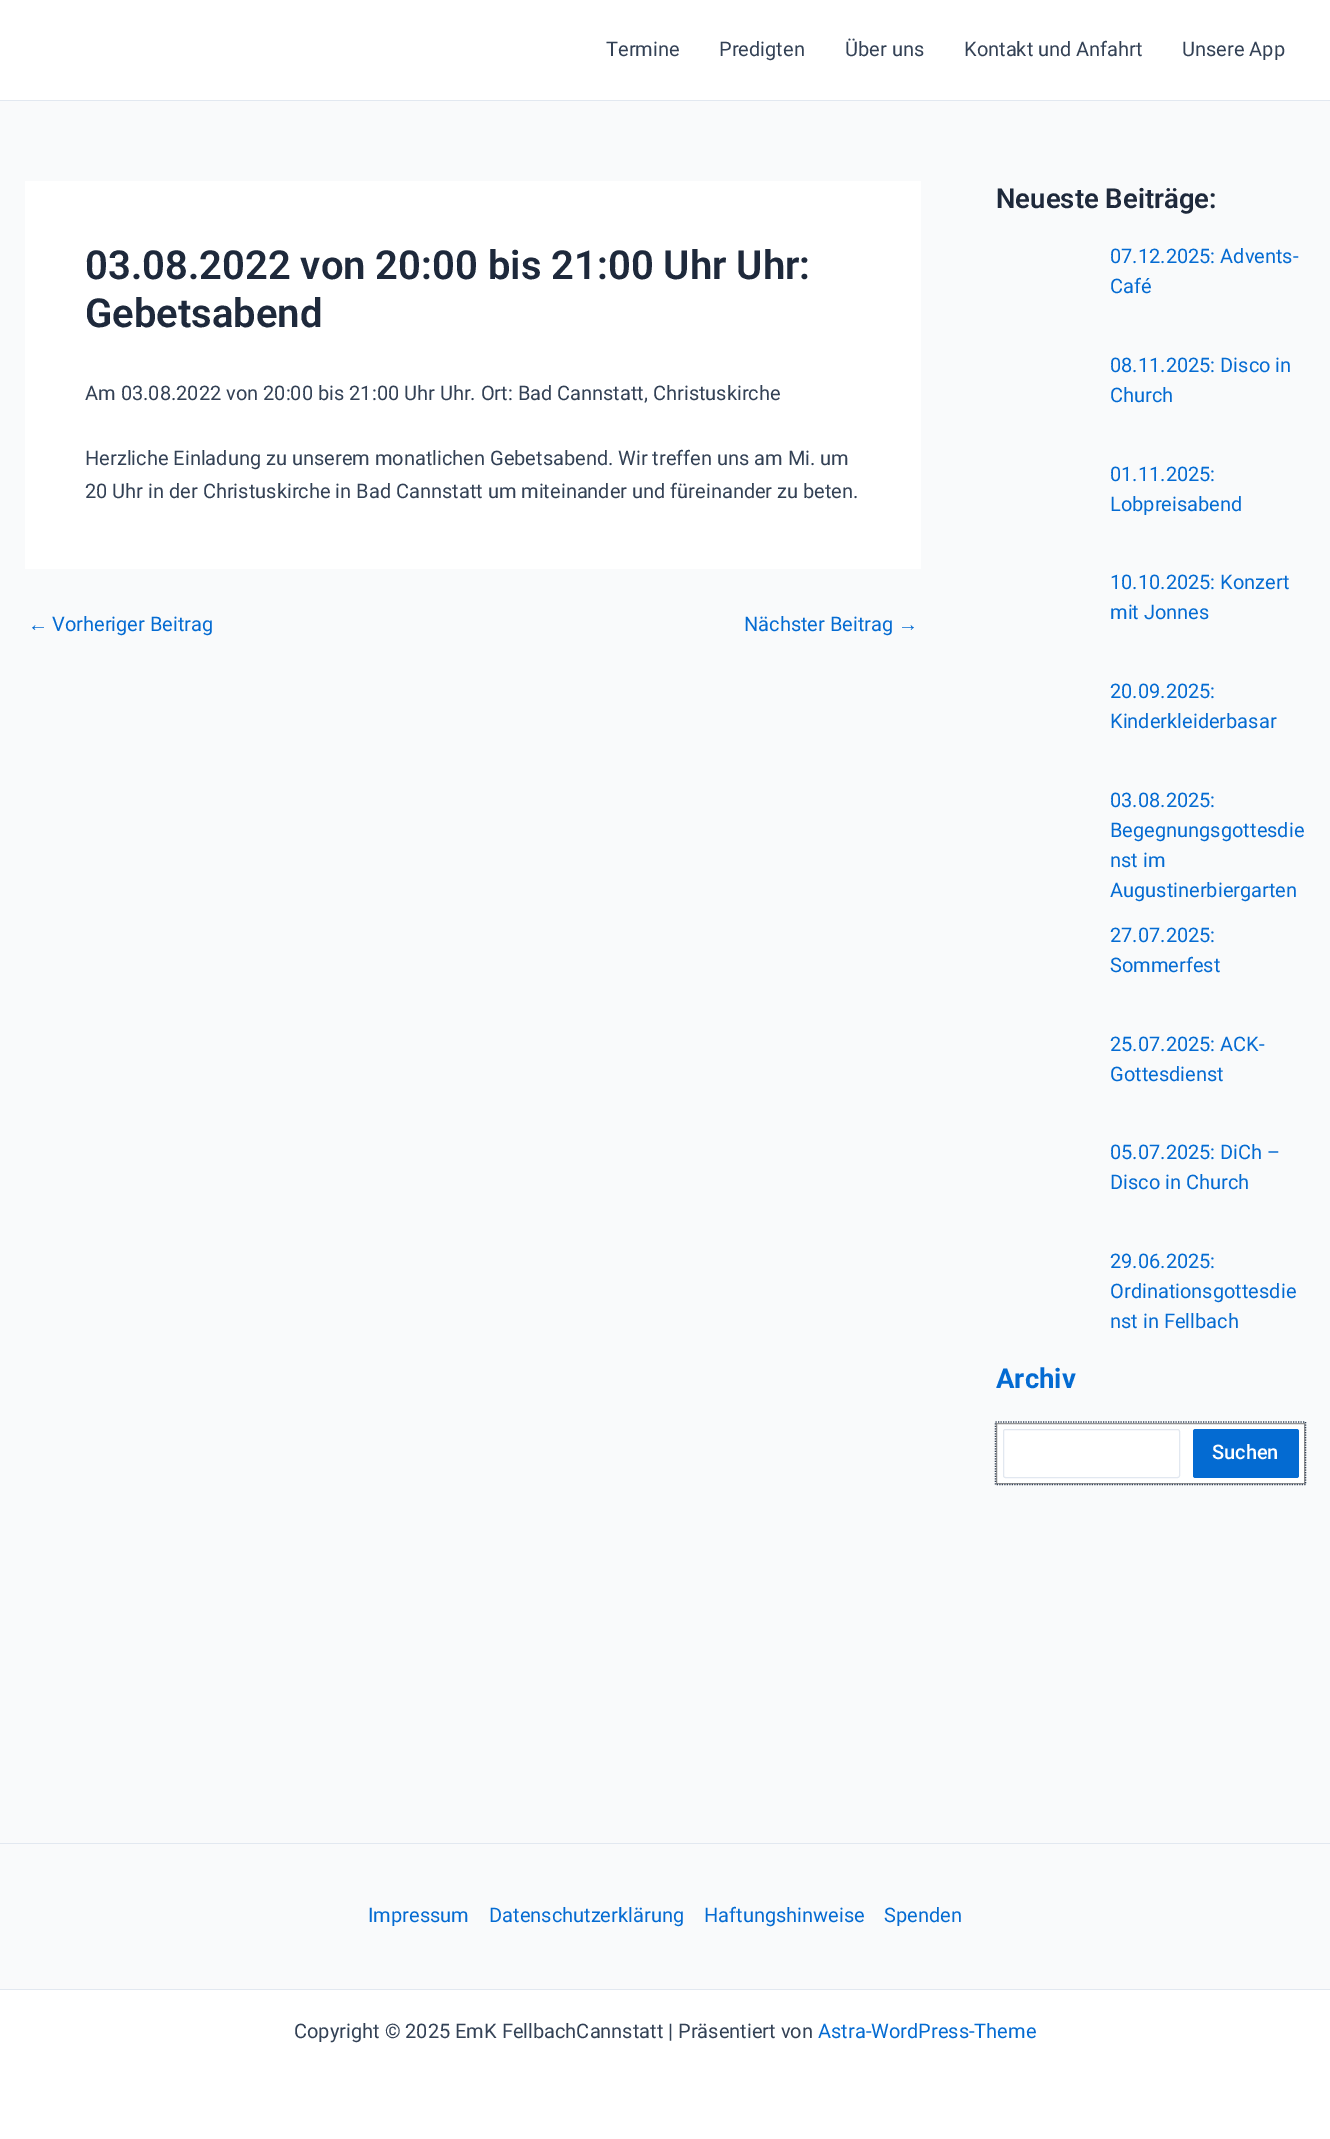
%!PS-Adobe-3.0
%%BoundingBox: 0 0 1330 2139
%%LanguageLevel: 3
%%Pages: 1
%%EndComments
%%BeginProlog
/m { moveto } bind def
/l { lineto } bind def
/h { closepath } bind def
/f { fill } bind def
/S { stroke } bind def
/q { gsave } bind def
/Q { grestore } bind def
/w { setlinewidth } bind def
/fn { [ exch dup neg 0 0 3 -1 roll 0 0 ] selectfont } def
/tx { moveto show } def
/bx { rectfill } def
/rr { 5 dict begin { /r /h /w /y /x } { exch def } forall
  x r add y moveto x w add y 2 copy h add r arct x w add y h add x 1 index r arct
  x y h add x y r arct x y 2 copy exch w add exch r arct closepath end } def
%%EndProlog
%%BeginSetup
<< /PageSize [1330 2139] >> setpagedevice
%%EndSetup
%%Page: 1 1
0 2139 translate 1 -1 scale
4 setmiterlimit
0.976 0.98 0.984 setrgbcolor
0 0 1330 2139 bx
1 setgray
0 0 1330 100 bx
0.886 0.91 0.941 setrgbcolor
0 100 1330 1 bx
/Roboto-Regular 20 fn
0.2 0.255 0.333 setrgbcolor
(Termine) 606 56 tx
(Predigten) 719 56 tx
(Über uns) 845 56 tx
(Kontakt und Anfahrt) 964 56 tx
(Unsere App) 1182 56 tx
1 setgray
25 181 896 388 bx
/Roboto-SemiBold 40 fn
0.118 0.161 0.231 setrgbcolor
(03.08.2022 von 20:00 bis 21:00 Uhr Uhr:) 85 279 tx
(Gebetsabend) 85 327 tx
/Roboto-Regular 20 fn
0.2 0.255 0.333 setrgbcolor
(Am 03.08.2022 von 20:00 bis 21:00 Uhr Uhr. Ort: Bad Cannstatt, Christuskirche) 85 400 tx
(Herzliche Einladung zu unserem monatlichen Gebetsabend. Wir treffen uns am Mi. um) 85 465 tx
(20 Uhr in der Christuskirche in Bad Cannstatt um miteinander und füreinander zu beten.) 85 498 tx
/LiberationSans-Regular 20 fn
0.016 0.42 0.824 setrgbcolor
(←) 28 631 tx
/Roboto-Regular 20 fn
(Vorheriger Beitrag) 52 631 tx
(Nächster Beitrag) 744 631 tx
/LiberationSans-Regular 20 fn
(→) 898 631 tx
/Roboto-SemiBold 27.5 fn
0.118 0.161 0.231 setrgbcolor
(Neueste Beiträge:) 996 208 tx
/Roboto-Regular 20 fn
0.016 0.42 0.824 setrgbcolor
(07.12.2025: Advents-) 1110 263 tx
(Café) 1110 293 tx
(08.11.2025: Disco in) 1110 372 tx
(Church) 1110 402 tx
(01.11.2025:) 1110 481 tx
(Lobpreisabend) 1110 511 tx
(10.10.2025: Konzert) 1110 589 tx
(mit Jonnes) 1110 619 tx
(20.09.2025:) 1110 698 tx
(Kinderkleiderbasar) 1110 728 tx
(03.08.2025:) 1110 807 tx
(Begegnungsgottesdie) 1110 837 tx
(nst im) 1110 867 tx
(Augustinerbiergarten) 1110 897 tx
(27.07.2025:) 1110 942 tx
(Sommerfest) 1110 972 tx
(25.07.2025: ACK-) 1110 1051 tx
(Gottesdienst) 1110 1081 tx
(05.07.2025: DiCh –) 1110 1159 tx
(Disco in Church) 1110 1189 tx
(29.06.2025:) 1110 1268 tx
(Ordinationsgottesdie) 1110 1298 tx
(nst in Fellbach) 1110 1328 tx
/Roboto-Bold 27.5 fn
(Archiv) 996 1388 tx
1 setgray
996.5 1423.5 m 1304.5 1423.5 l 1304.5 1483.5 l 996.5 1483.5 l h q f Q
0.58 setgray
S
0.886 0.91 0.941 setrgbcolor
1003.5 1429.5 176 48 2 rr S
0.016 0.42 0.824 setrgbcolor
1193 1429 106 49 2.5 rr f
/Roboto-Medium 20 fn
1 setgray
(Suchen) 1212 1459 tx
0.2 0.255 0.333 setrgbcolor
1.2 w
[1.25 1.25] 0 setdash
995.5 1422 m 1305.5 1422 l 1305.5 1484.5 l 995.5 1484.5 l h S
0.886 0.91 0.941 setrgbcolor
0 1843 1330 1 bx
/Roboto-Regular 20 fn
0.016 0.42 0.824 setrgbcolor
(Impressum) 368 1922 tx
(Datenschutzerklärung) 489 1922 tx
(Haftungshinweise) 704 1922 tx
(Spenden) 884 1922 tx
1 setgray
0 1990 1330 149 bx
0.886 0.91 0.941 setrgbcolor
0 1989 1330 1 bx
0.2 0.255 0.333 setrgbcolor
(Copyright © 2025 EmK FellbachCannstatt | Präsentiert von) 294 2038 tx
0.016 0.42 0.824 setrgbcolor
(Astra-WordPress-Theme) 818 2038 tx
showpage
%%EOF
